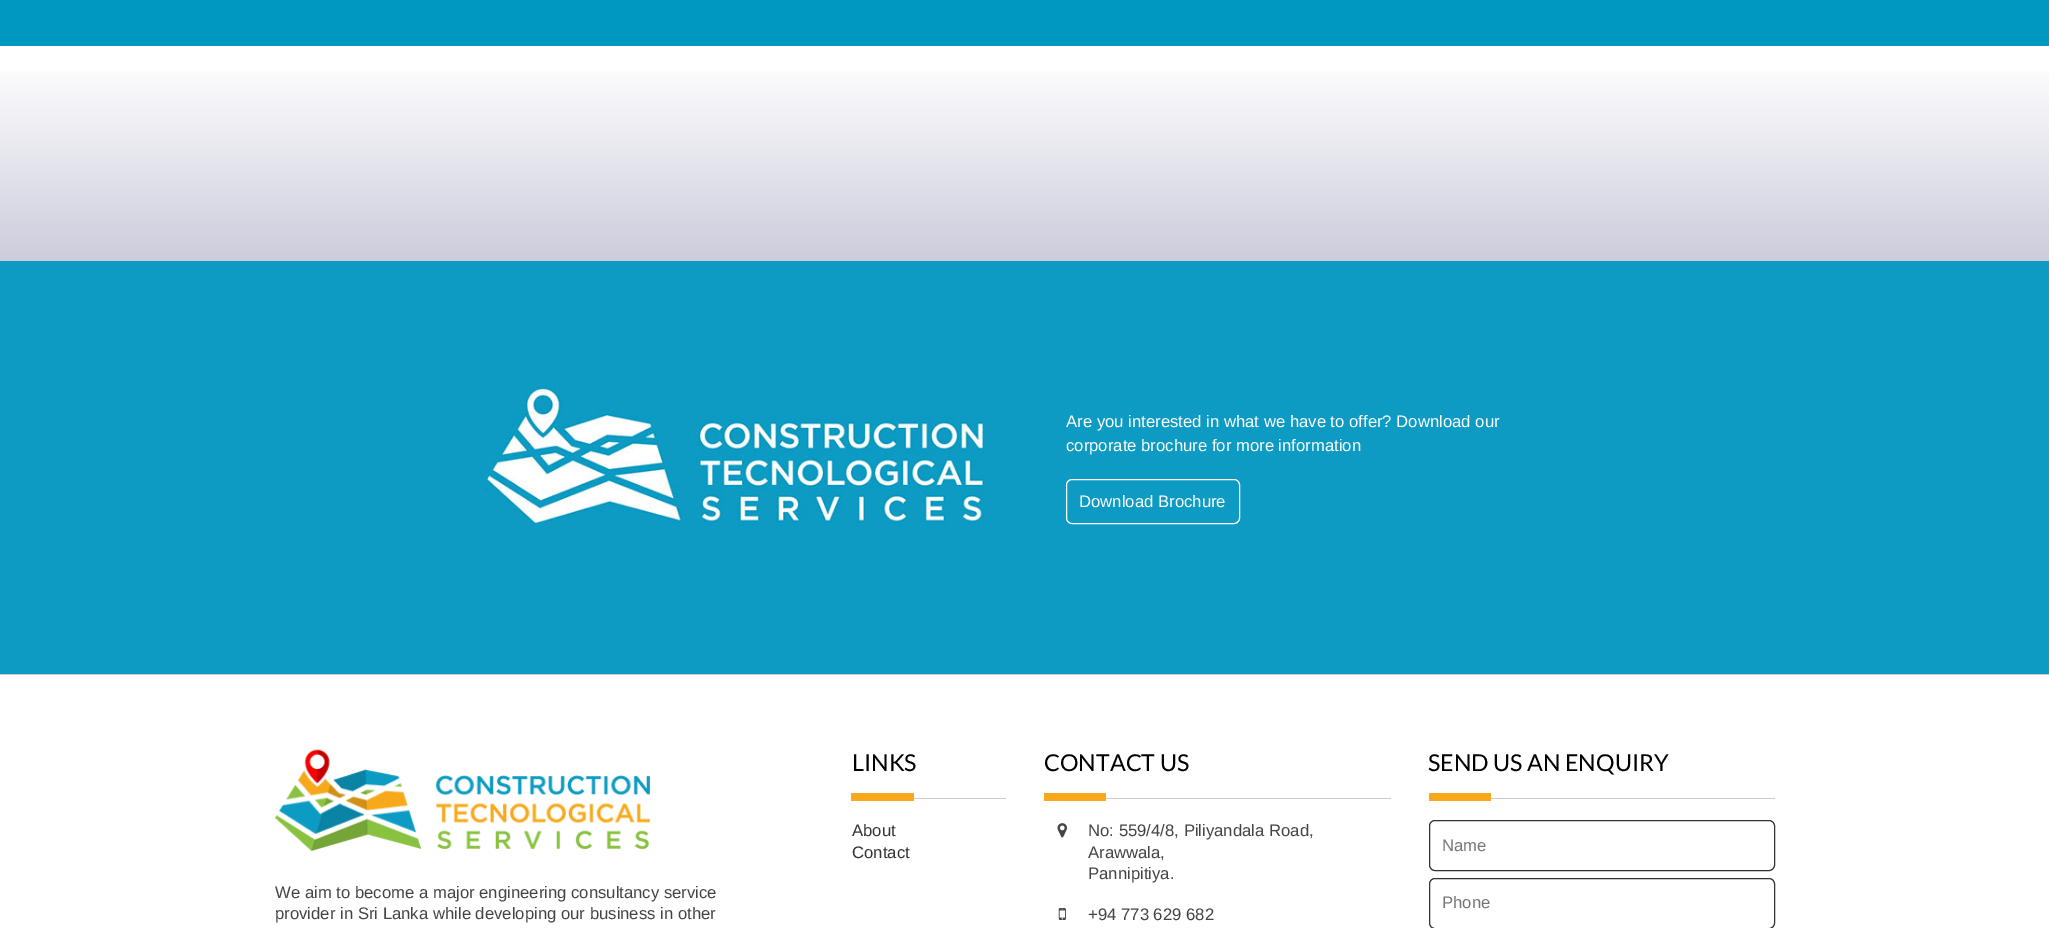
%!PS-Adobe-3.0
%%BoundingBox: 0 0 2049 928
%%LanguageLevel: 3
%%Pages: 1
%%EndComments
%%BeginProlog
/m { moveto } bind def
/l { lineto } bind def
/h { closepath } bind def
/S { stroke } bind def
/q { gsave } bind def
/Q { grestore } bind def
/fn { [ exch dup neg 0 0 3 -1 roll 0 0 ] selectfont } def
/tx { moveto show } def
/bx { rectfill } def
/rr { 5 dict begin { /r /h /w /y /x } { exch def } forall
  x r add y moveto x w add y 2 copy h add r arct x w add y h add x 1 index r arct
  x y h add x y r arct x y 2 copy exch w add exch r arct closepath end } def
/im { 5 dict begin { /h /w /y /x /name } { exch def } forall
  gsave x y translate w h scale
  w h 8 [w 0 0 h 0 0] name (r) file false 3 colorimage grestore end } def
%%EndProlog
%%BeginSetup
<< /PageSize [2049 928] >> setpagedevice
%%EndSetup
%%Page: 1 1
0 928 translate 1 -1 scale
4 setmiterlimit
1 setgray
0 0 2049 928 bx
0 0.592 0.753 setrgbcolor
0 0 2049 46 bx
q 0 71 m 2049 71 l 2049 261 l 0 261 l h clip newpath
<< /ShadingType 2 /ColorSpace /DeviceRGB /Coords [1025 61 1025 261] /Extend [true true] /Function << /FunctionType 2 /Domain [0 1] /C0 [1 1 1] /C1 [0.8 0.8 0.863] /N 1 >> >> shfill Q
0.051 0.608 0.765 setrgbcolor
0 261 2049 413 bx
(image0.raw) 485 386 499 140 im
/LiberationSans-Regular 16.7 fn
1 setgray
(Are you interested in what we have to offer? Download our) 1066 427 tx
(corporate brochure for more information) 1066 451 tx
1066.5 479.5 173 44 5.5 rr S
(Download Brochure) 1079 507 tx
0.8 setgray
0 674 2049 1 bx
(image1.raw) 275 749 375 102 im
0.267 setgray
(We aim to become a major engineering consultancy service) 275 898 tx
(provider in Sri Lanka while developing our business in other) 275 919 tx
/Lato-Regular 23.25 fn
0 setgray
(LINKS) 852 771 tx
0.969 0.663 0.106 setrgbcolor
851 793 63 8 bx
0.8 setgray
914 798 92 1 bx
/LiberationSans-Regular 16.7 fn
0.2 setgray
(About) 852 836 tx
(Contact) 852 858 tx
/Lato-Regular 23.25 fn
0 setgray
(CONTACT US) 1044 771 tx
0.969 0.663 0.106 setrgbcolor
1044 793 62 8 bx
0.8 setgray
1106 798 285 1 bx
(image2.raw) 1057 823 10 15 im
/LiberationSans-Regular 16.7 fn
0.267 setgray
(No: 559/4/8, Piliyandala Road,) 1088 836 tx
(Arawwala,) 1088 858 tx
(Pannipitiya.) 1088 879 tx
(image3.raw) 1058 908 8 12 im
(+94 773 629 682) 1088 920 tx
/Lato-Regular 23.25 fn
0 setgray
(SEND US AN ENQUIRY) 1428 771 tx
0.969 0.663 0.106 setrgbcolor
1429 793 62 8 bx
0.8 setgray
1491 798 284 1 bx
0.2 setgray
1429.5 820.5 345 50 5.5 rr S
/LiberationSans-Regular 16.7 fn
0.459 setgray
(Name) 1442 851 tx
0.2 setgray
1429.5 878.5 345 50 5.5 rr S
0.459 setgray
(Phone) 1442 908 tx
showpage
%%EOF
